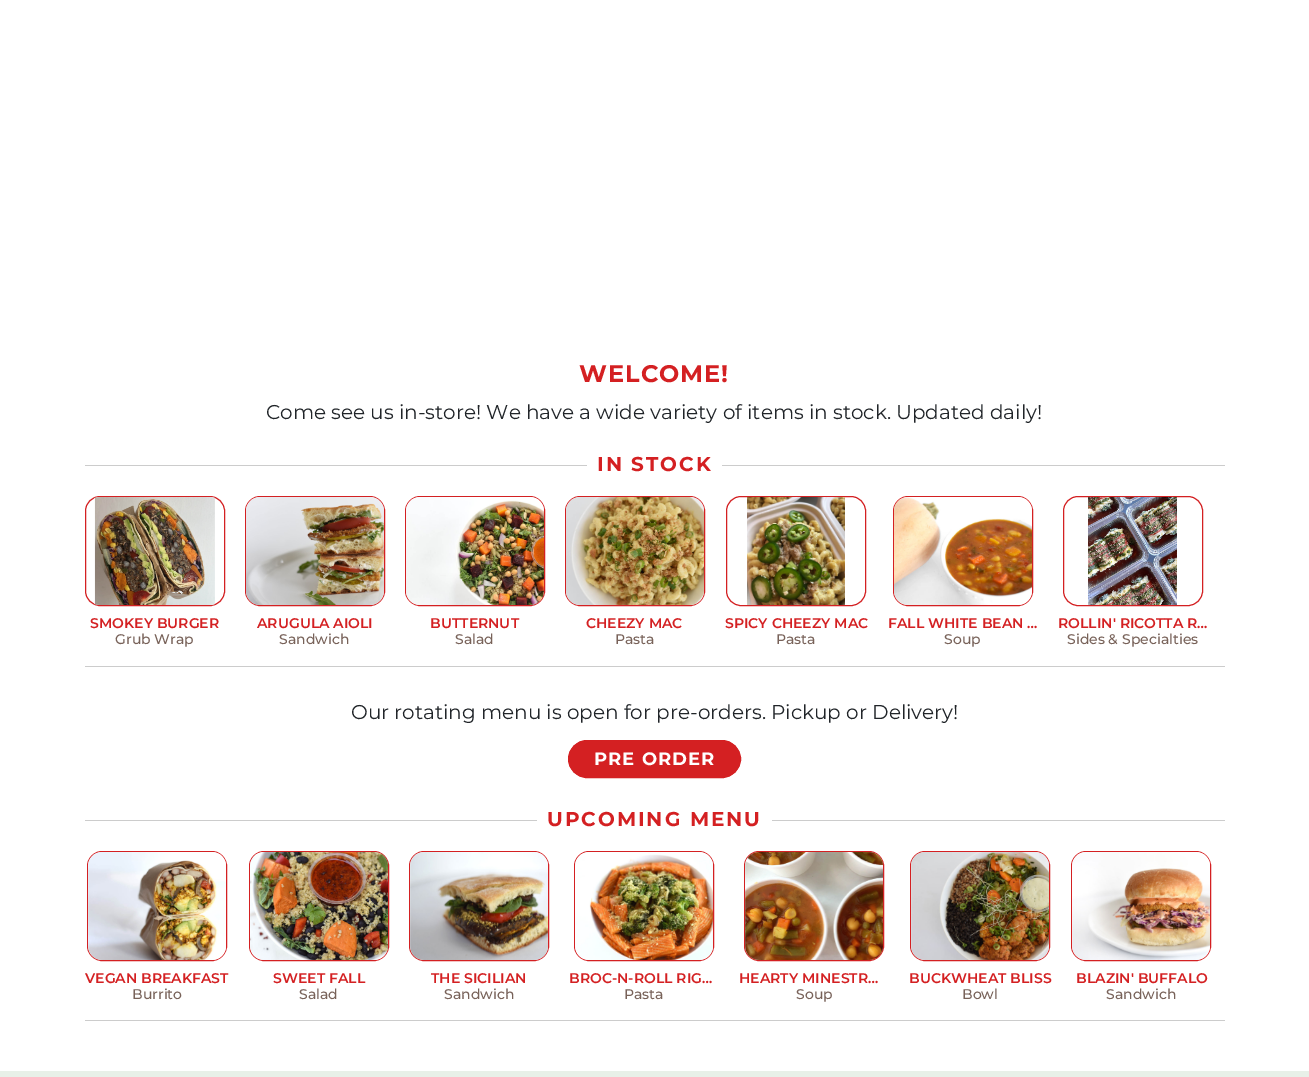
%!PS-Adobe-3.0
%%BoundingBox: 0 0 1309 1077
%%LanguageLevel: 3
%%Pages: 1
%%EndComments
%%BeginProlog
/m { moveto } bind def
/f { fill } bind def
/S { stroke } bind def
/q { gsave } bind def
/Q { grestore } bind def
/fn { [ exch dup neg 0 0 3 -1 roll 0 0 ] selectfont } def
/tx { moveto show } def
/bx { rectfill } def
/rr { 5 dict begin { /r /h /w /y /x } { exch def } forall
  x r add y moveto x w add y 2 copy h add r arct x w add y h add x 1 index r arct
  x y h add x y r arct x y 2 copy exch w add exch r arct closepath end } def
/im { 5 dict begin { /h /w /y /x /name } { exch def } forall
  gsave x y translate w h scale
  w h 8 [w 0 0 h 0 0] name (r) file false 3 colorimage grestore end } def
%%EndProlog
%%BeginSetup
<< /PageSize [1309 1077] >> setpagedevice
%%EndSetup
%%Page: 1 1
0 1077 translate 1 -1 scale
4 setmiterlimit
1 setgray
0 0 1309 1077 bx
/Montserrat-Bold 24 fn
0.831 0.125 0.133 setrgbcolor
579 382 m 1 0 (WELCOME!) ashow
/Montserrat-Regular 20 fn
0.129 0.145 0.161 setrgbcolor
(Come see us in-store! We have a wide variety of items in stock. Updated daily!) 266 419 tx
0.8 setgray
85 465 1140 1 bx
1 setgray
587 465 135 1 bx
/Montserrat-Bold 20 fn
0.831 0.125 0.133 setrgbcolor
597 471 m 2 0 (IN STOCK) ashow
0.8 setgray
85 666 1140 1 bx
0.831 0.125 0.133 setrgbcolor
85.5 496.5 139 109 14.5 rr S
(image0.raw) 94 497 121 108 im
/Montserrat-SemiBold 14 fn
(SMOKEY BURGER) 90 628 tx
/Montserrat-Medium 14 fn
0.471 0.384 0.349 setrgbcolor
(Grub Wrap) 115 644 tx
0.831 0.125 0.133 setrgbcolor
245.5 496.5 139 109 14.5 rr S
(image1.raw) 246 497 138 108 im
/Montserrat-SemiBold 14 fn
(ARUGULA AIOLI) 257 628 tx
/Montserrat-Medium 14 fn
0.471 0.384 0.349 setrgbcolor
(Sandwich) 279 644 tx
0.831 0.125 0.133 setrgbcolor
405.5 496.5 139 109 14.5 rr S
(image2.raw) 406 497 138 108 im
/Montserrat-SemiBold 14 fn
(BUTTERNUT) 430 628 tx
/Montserrat-Medium 14 fn
0.471 0.384 0.349 setrgbcolor
(Salad) 455 644 tx
0.831 0.125 0.133 setrgbcolor
565.5 496.5 139 109 14.5 rr S
(image3.raw) 566 497 138 108 im
/Montserrat-SemiBold 14 fn
(CHEEZY MAC) 586 628 tx
/Montserrat-Medium 14 fn
0.471 0.384 0.349 setrgbcolor
(Pasta) 615 644 tx
0.831 0.125 0.133 setrgbcolor
726.5 496.5 139 109 14.5 rr S
(image4.raw) 747 497 98 108 im
/Montserrat-SemiBold 14 fn
(SPICY CHEEZY MAC) 725 628 tx
/Montserrat-Medium 14 fn
0.471 0.384 0.349 setrgbcolor
(Pasta) 776 644 tx
0.831 0.125 0.133 setrgbcolor
893.5 496.5 139 109 14.5 rr S
(image5.raw) 894 497 138 108 im
/Montserrat-SemiBold 14 fn
(FALL WHITE BEAN …) 888 628 tx
/Montserrat-Medium 14 fn
0.471 0.384 0.349 setrgbcolor
(Soup) 944 644 tx
0.831 0.125 0.133 setrgbcolor
1063.5 496.5 139 109 14.5 rr S
(image6.raw) 1088 497 89 108 im
/Montserrat-SemiBold 14 fn
(ROLLIN' RICOTTA R…) 1058 628 tx
/Montserrat-Medium 14 fn
0.471 0.384 0.349 setrgbcolor
(Sides & Specialties) 1067 644 tx
/Montserrat-Regular 20 fn
0.129 0.145 0.161 setrgbcolor
(Our rotating menu is open for pre-orders. Pickup or Delivery!) 351 719 tx
0.831 0.125 0.133 setrgbcolor
568.5 740.5 172 37 18.5 rr q f Q
S
/Montserrat-Bold 18 fn
1 setgray
594 765 m 1 0 (PRE ORDER) ashow
0.8 setgray
85 820 1140 1 bx
1 setgray
537 820 235 1 bx
/Montserrat-Bold 20 fn
0.831 0.125 0.133 setrgbcolor
547 826 m 2 0 (UPCOMING MENU) ashow
0.8 setgray
85 1020 1140 1 bx
0.831 0.125 0.133 setrgbcolor
87.5 851.5 139 109 14.5 rr S
(image7.raw) 88 852 138 108 im
/Montserrat-SemiBold 14 fn
(VEGAN BREAKFAST) 85 983 tx
/Montserrat-Medium 14 fn
0.471 0.384 0.349 setrgbcolor
(Burrito) 132 999 tx
0.831 0.125 0.133 setrgbcolor
249.5 851.5 139 109 14.5 rr S
(image8.raw) 250 852 138 108 im
/Montserrat-SemiBold 14 fn
(SWEET FALL) 273 983 tx
/Montserrat-Medium 14 fn
0.471 0.384 0.349 setrgbcolor
(Salad) 299 999 tx
0.831 0.125 0.133 setrgbcolor
409.5 851.5 139 109 14.5 rr S
(image9.raw) 410 852 138 108 im
/Montserrat-SemiBold 14 fn
(THE SICILIAN) 431 983 tx
/Montserrat-Medium 14 fn
0.471 0.384 0.349 setrgbcolor
(Sandwich) 444 999 tx
0.831 0.125 0.133 setrgbcolor
574.5 851.5 139 109 14.5 rr S
(image10.raw) 575 852 138 108 im
/Montserrat-SemiBold 14 fn
(BROC-N-ROLL RIG…) 569 983 tx
/Montserrat-Medium 14 fn
0.471 0.384 0.349 setrgbcolor
(Pasta) 624 999 tx
0.831 0.125 0.133 setrgbcolor
744.5 851.5 139 109 14.5 rr S
(image11.raw) 745 852 138 108 im
/Montserrat-SemiBold 14 fn
(HEARTY MINESTR…) 739 983 tx
/Montserrat-Medium 14 fn
0.471 0.384 0.349 setrgbcolor
(Soup) 796 999 tx
0.831 0.125 0.133 setrgbcolor
910.5 851.5 139 109 14.5 rr S
(image12.raw) 911 852 138 108 im
/Montserrat-SemiBold 14 fn
(BUCKWHEAT BLISS) 909 983 tx
/Montserrat-Medium 14 fn
0.471 0.384 0.349 setrgbcolor
(Bowl) 962 999 tx
0.831 0.125 0.133 setrgbcolor
1071.5 851.5 139 109 14.5 rr S
(image13.raw) 1072 852 138 108 im
/Montserrat-SemiBold 14 fn
(BLAZIN' BUFFALO) 1076 983 tx
/Montserrat-Medium 14 fn
0.471 0.384 0.349 setrgbcolor
(Sandwich) 1106 999 tx
0.91 0.941 0.91 setrgbcolor
0 1071 1309 6 bx
showpage
%%EOF
